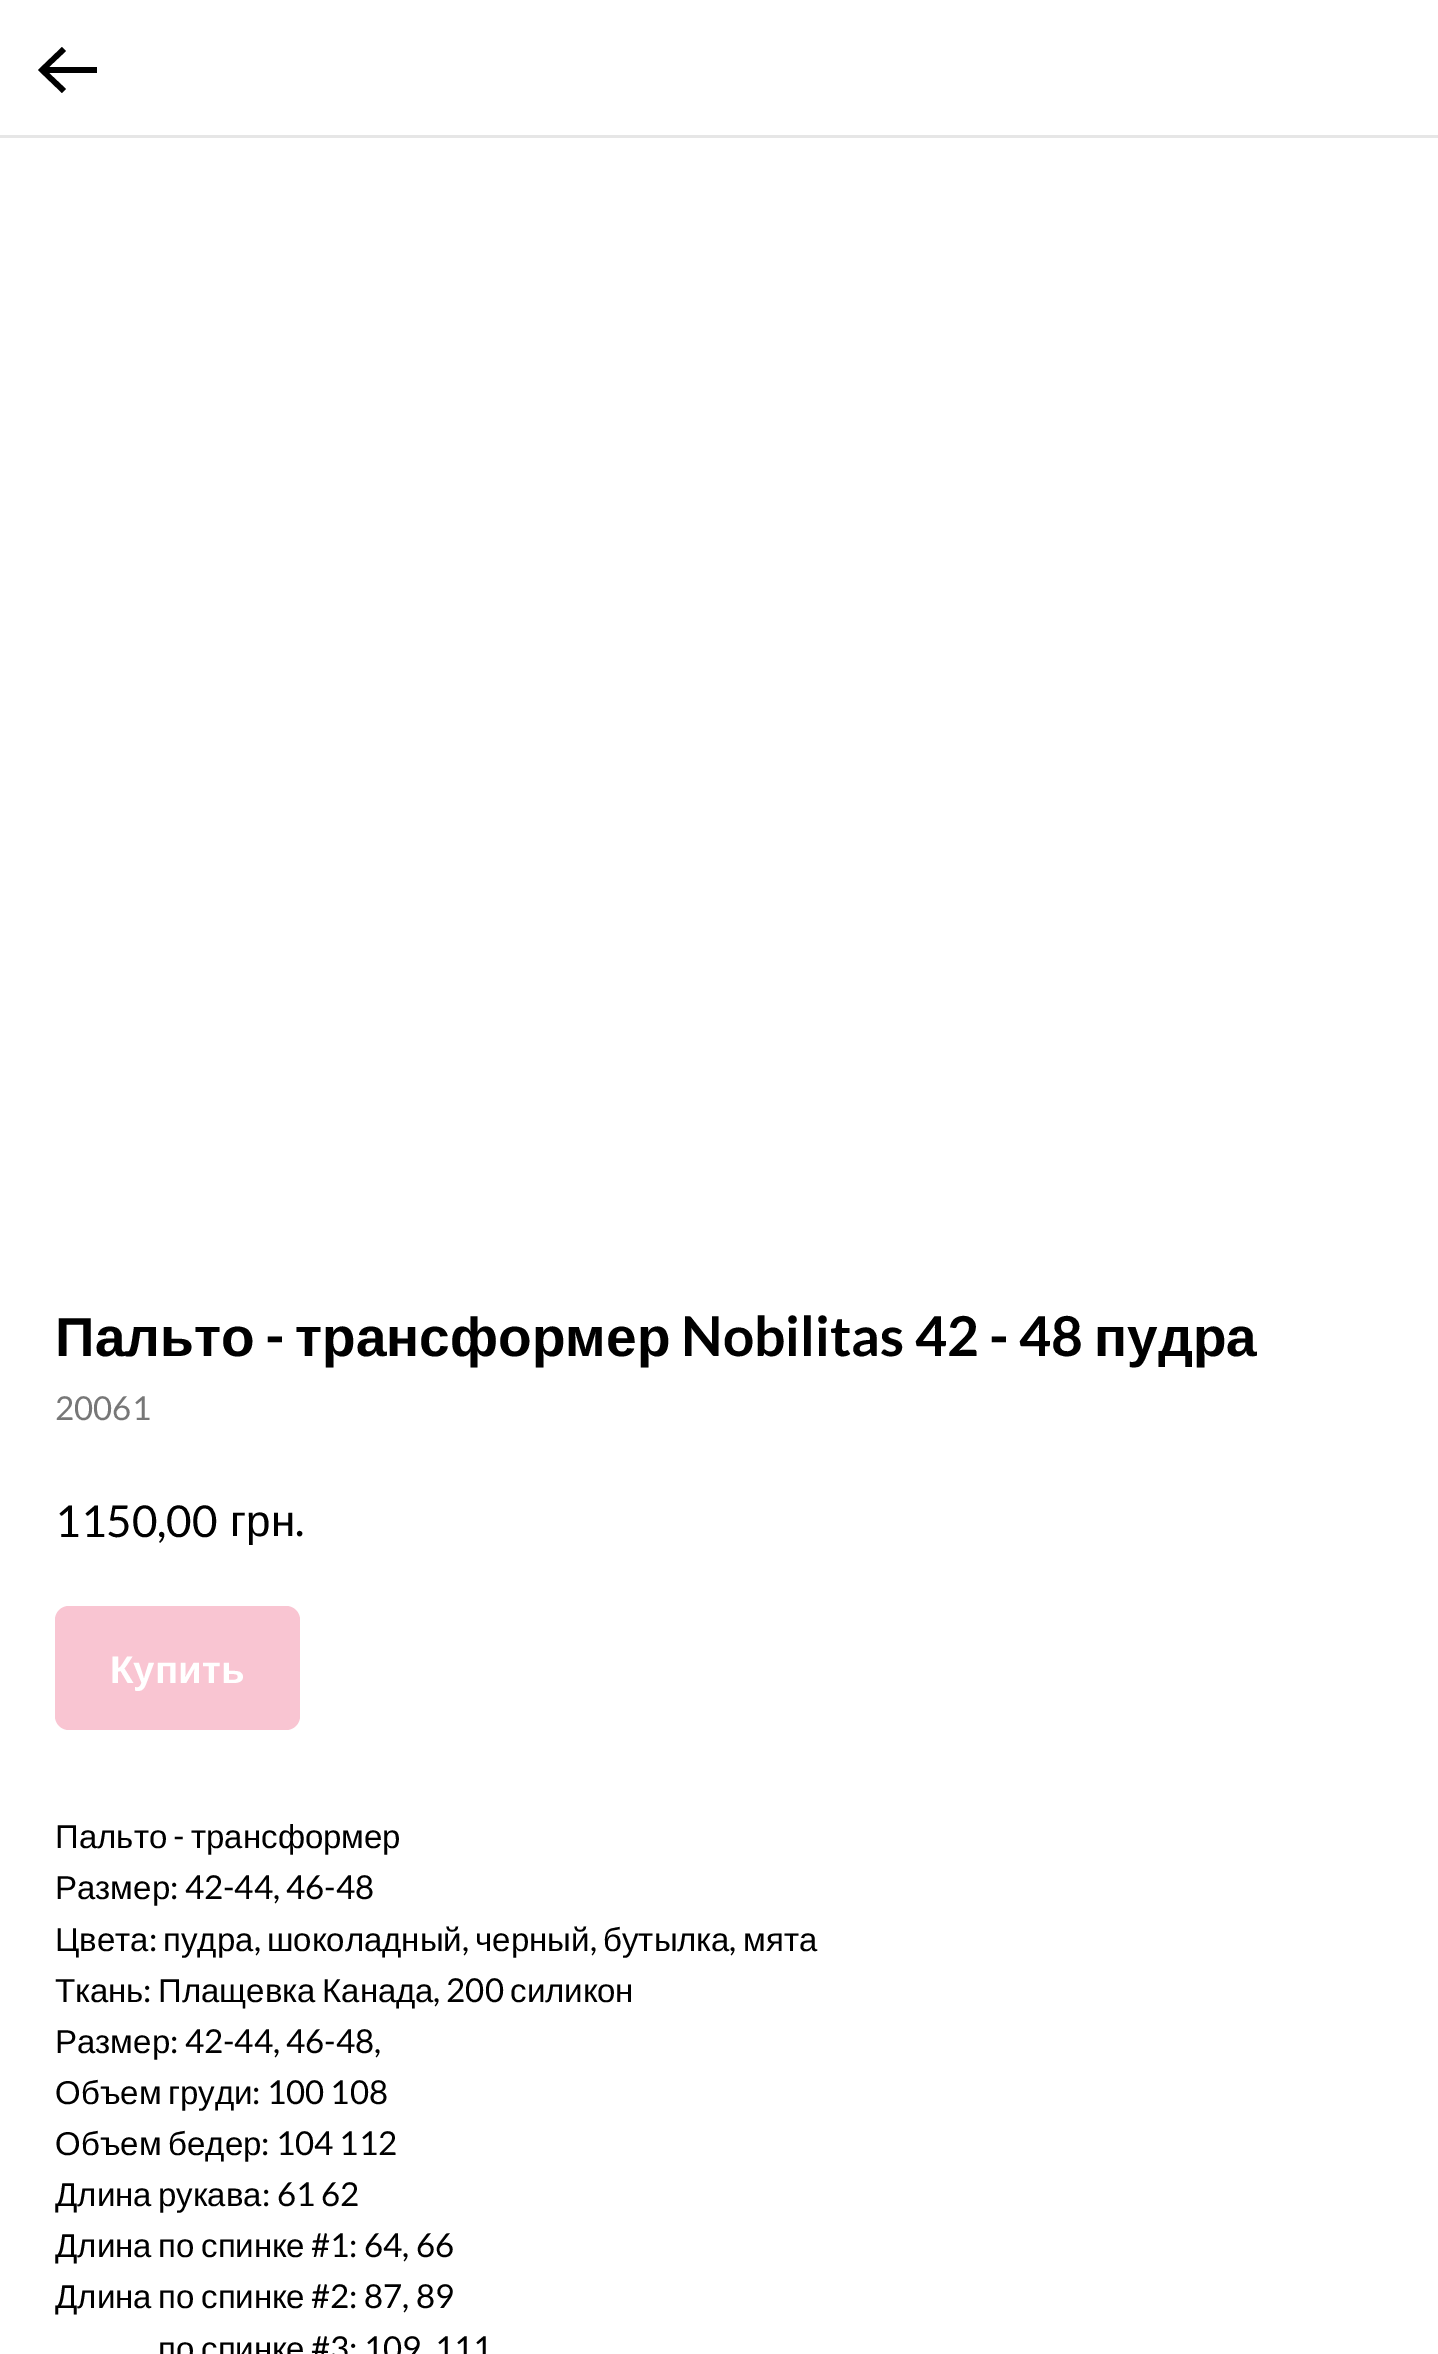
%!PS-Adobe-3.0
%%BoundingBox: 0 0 1438 2354
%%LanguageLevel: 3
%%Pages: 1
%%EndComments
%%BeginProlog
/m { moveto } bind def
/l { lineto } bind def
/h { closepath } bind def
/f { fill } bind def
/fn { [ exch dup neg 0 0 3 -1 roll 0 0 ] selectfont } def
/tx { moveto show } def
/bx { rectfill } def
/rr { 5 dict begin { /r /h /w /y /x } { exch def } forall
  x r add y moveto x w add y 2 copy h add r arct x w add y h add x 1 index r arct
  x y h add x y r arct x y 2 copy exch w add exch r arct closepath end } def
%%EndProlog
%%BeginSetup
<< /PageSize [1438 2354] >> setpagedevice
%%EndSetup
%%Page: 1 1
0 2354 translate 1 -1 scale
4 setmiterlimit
1 setgray
0 0 1438 2354 bx
0.902 setgray
0 135 1438 3 bx
0 setgray
62 47 m 66 51 l 49 67 l 97 67 l 97 73 l 49 73 l 66 89 l 62 93 l 38 70 l h f
/LiberationSans-Bold 55 fn
(Пальто) 55 1356 tx
/Lato-Bold 55 fn
(-) 265 1356 tx
/LiberationSans-Bold 55 fn
(трансформер) 295 1356 tx
/Lato-Bold 55 fn
(Nobilitas 42 - 48) 681 1356 tx
/LiberationSans-Bold 55 fn
(пудра) 1094 1356 tx
/Lato-Regular 33 fn
0.467 setgray
(20061) 55 1420 tx
/Lato-Regular 44 fn
0 setgray
(1150,00) 55 1537 tx
/LiberationSans-Regular 44 fn
(грн) 230 1536 tx
/Lato-Regular 44 fn
(.) 295 1536 tx
0.976 0.773 0.824 setrgbcolor
55 1606 245 124 14 rr f
/LiberationSans-Bold 38.5 fn
1 setgray
(Купить) 110 1683 tx
/LiberationSans-Regular 33 fn
0 setgray
(Пальто) 55 1848 tx
/Lato-Regular 33 fn
(-) 173 1848 tx
/LiberationSans-Regular 33 fn
(трансформер) 191 1848 tx
(Размер) 55 1899 tx
/Lato-Regular 33 fn
(: 42-44, 46-48) 170 1899 tx
/LiberationSans-Regular 33 fn
(Цвета) 55 1951 tx
/Lato-Regular 33 fn
(:) 149 1951 tx
/LiberationSans-Regular 33 fn
(пудра) 163 1951 tx
/Lato-Regular 33 fn
(,) 254 1951 tx
/LiberationSans-Regular 33 fn
(шоколадный) 267 1951 tx
/Lato-Regular 33 fn
(,) 462 1951 tx
/LiberationSans-Regular 33 fn
(черный) 475 1951 tx
/Lato-Regular 33 fn
(,) 590 1951 tx
/LiberationSans-Regular 33 fn
(бутылка) 603 1951 tx
/Lato-Regular 33 fn
(,) 729 1951 tx
/LiberationSans-Regular 33 fn
(мята) 743 1951 tx
(Ткань) 55 2002 tx
/Lato-Regular 33 fn
(:) 143 2002 tx
/LiberationSans-Regular 33 fn
(Плащевка) 158 2002 tx
(Канада) 322 2002 tx
/Lato-Regular 33 fn
(, 200) 433 2002 tx
/LiberationSans-Regular 33 fn
(силикон) 510 2002 tx
(Размер) 55 2053 tx
/Lato-Regular 33 fn
(: 42-44, 46-48,) 170 2053 tx
/LiberationSans-Regular 33 fn
(Объем) 55 2104 tx
(груди) 168 2104 tx
/Lato-Regular 33 fn
(: 100 108) 252 2104 tx
/LiberationSans-Regular 33 fn
(Объем) 55 2155 tx
(бедер) 168 2155 tx
/Lato-Regular 33 fn
(: 104 112) 261 2155 tx
/LiberationSans-Regular 33 fn
(Длина) 55 2206 tx
(рукава) 158 2206 tx
/Lato-Regular 33 fn
(: 61 62) 262 2206 tx
/LiberationSans-Regular 33 fn
(Длина) 55 2257 tx
(по) 158 2257 tx
(спинке) 201 2257 tx
/Lato-Regular 33 fn
(#1: 64, 66) 311 2257 tx
/LiberationSans-Regular 33 fn
(Длина) 55 2308 tx
(по) 158 2308 tx
(спинке) 201 2308 tx
/Lato-Regular 33 fn
(#2: 87, 89) 311 2308 tx
/LiberationSans-Regular 33 fn
(по) 158 2360 tx
(спинке) 201 2360 tx
/Lato-Regular 33 fn
(#3: 109, 111) 311 2360 tx
showpage
%%EOF
